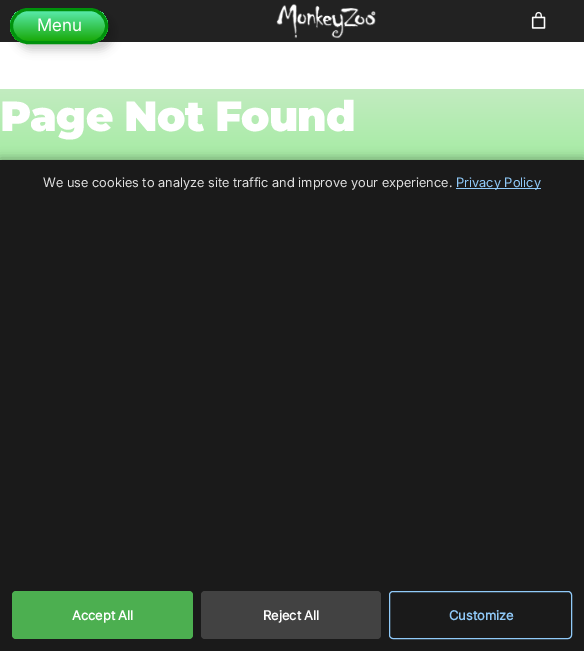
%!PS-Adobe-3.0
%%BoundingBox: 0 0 584 651
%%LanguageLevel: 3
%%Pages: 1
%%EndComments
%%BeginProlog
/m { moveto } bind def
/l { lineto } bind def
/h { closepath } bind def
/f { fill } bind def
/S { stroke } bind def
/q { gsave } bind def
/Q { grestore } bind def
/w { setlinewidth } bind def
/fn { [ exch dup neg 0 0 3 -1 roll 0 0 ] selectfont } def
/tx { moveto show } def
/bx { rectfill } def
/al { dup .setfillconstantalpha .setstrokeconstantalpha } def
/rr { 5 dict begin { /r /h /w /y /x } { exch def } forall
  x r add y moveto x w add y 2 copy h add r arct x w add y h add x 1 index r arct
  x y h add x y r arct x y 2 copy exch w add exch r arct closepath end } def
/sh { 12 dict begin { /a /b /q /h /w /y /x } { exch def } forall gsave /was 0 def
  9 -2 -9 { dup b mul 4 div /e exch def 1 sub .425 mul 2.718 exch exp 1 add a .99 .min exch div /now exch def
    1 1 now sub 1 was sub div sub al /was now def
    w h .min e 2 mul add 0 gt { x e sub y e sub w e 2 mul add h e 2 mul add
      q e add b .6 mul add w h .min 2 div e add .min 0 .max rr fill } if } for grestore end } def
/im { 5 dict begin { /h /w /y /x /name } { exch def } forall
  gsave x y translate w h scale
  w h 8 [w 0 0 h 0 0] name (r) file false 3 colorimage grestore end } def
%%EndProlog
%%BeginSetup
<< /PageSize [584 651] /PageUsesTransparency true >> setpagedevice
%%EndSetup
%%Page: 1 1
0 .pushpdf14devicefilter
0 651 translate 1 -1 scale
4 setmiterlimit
1 setgray
0 0 584 651 bx
0.133 setgray
0 0 584 42 bx
0 setgray
16 14 98 36 18 4.5 0.2 sh
q
10 8 98 36 18 rr clip newpath
q 10 11 m 108 11 l 108 41 l 10 41 l h clip newpath
<< /ShadingType 2 /ColorSpace /DeviceRGB /Coords [59 11 59 41] /Extend [true true] /Function << /FunctionType 2 /Domain [0 1] /C0 [0.349 0.918 0.671] /C1 [0.098 0.663 0.035] /N 1 >> >> shfill Q
Q
0 0.573 0.047 setrgbcolor
3 w
11.5 9.5 95 33 16.5 rr S
/Inter-Regular 17 fn
1 setgray
(Menu) 37 31 tx
(image0.raw) 276 4 100 35 im
(image1.raw) 531 11 15 18 im
q 0 89 m 584 89 l 584 160 l 0 160 l h clip newpath
<< /ShadingType 2 /ColorSpace /DeviceRGB /Coords [292 277 292 89] /Extend [true true] /Function << /FunctionType 2 /Domain [0 1] /C0 [0.467 0.918 0.459] /C1 [0.761 0.925 0.753] /N 1 >> >> shfill Q
/Montserrat-Black 42 fn
0 131 m -0.8 0 (Page Not Found) ashow
0 setgray
0 158 584 491 0 5 0.3 sh
0.102 setgray
0 160 584 491 bx
/Inter-Regular 13 fn
0.878 setgray
(We use cookies to analyze site traffic and improve your experience.) 43 187 tx
0.565 0.792 0.976 setrgbcolor
456 188 85 1 bx
(Privacy Policy) 456 187 tx
0.298 0.686 0.314 setrgbcolor
12 591 181 48 4 rr f
/Inter-Bold 13 fn
1 setgray
(Accept All) 72 620 tx
0.259 setgray
201 591 180 48 4 rr f
1 setgray
(Reject All) 263 620 tx
0.565 0.792 0.976 setrgbcolor
1 w
389.5 591.5 182 47 3.5 rr S
(Customize) 449 620 tx
.poppdf14devicefilter showpage
%%EOF
